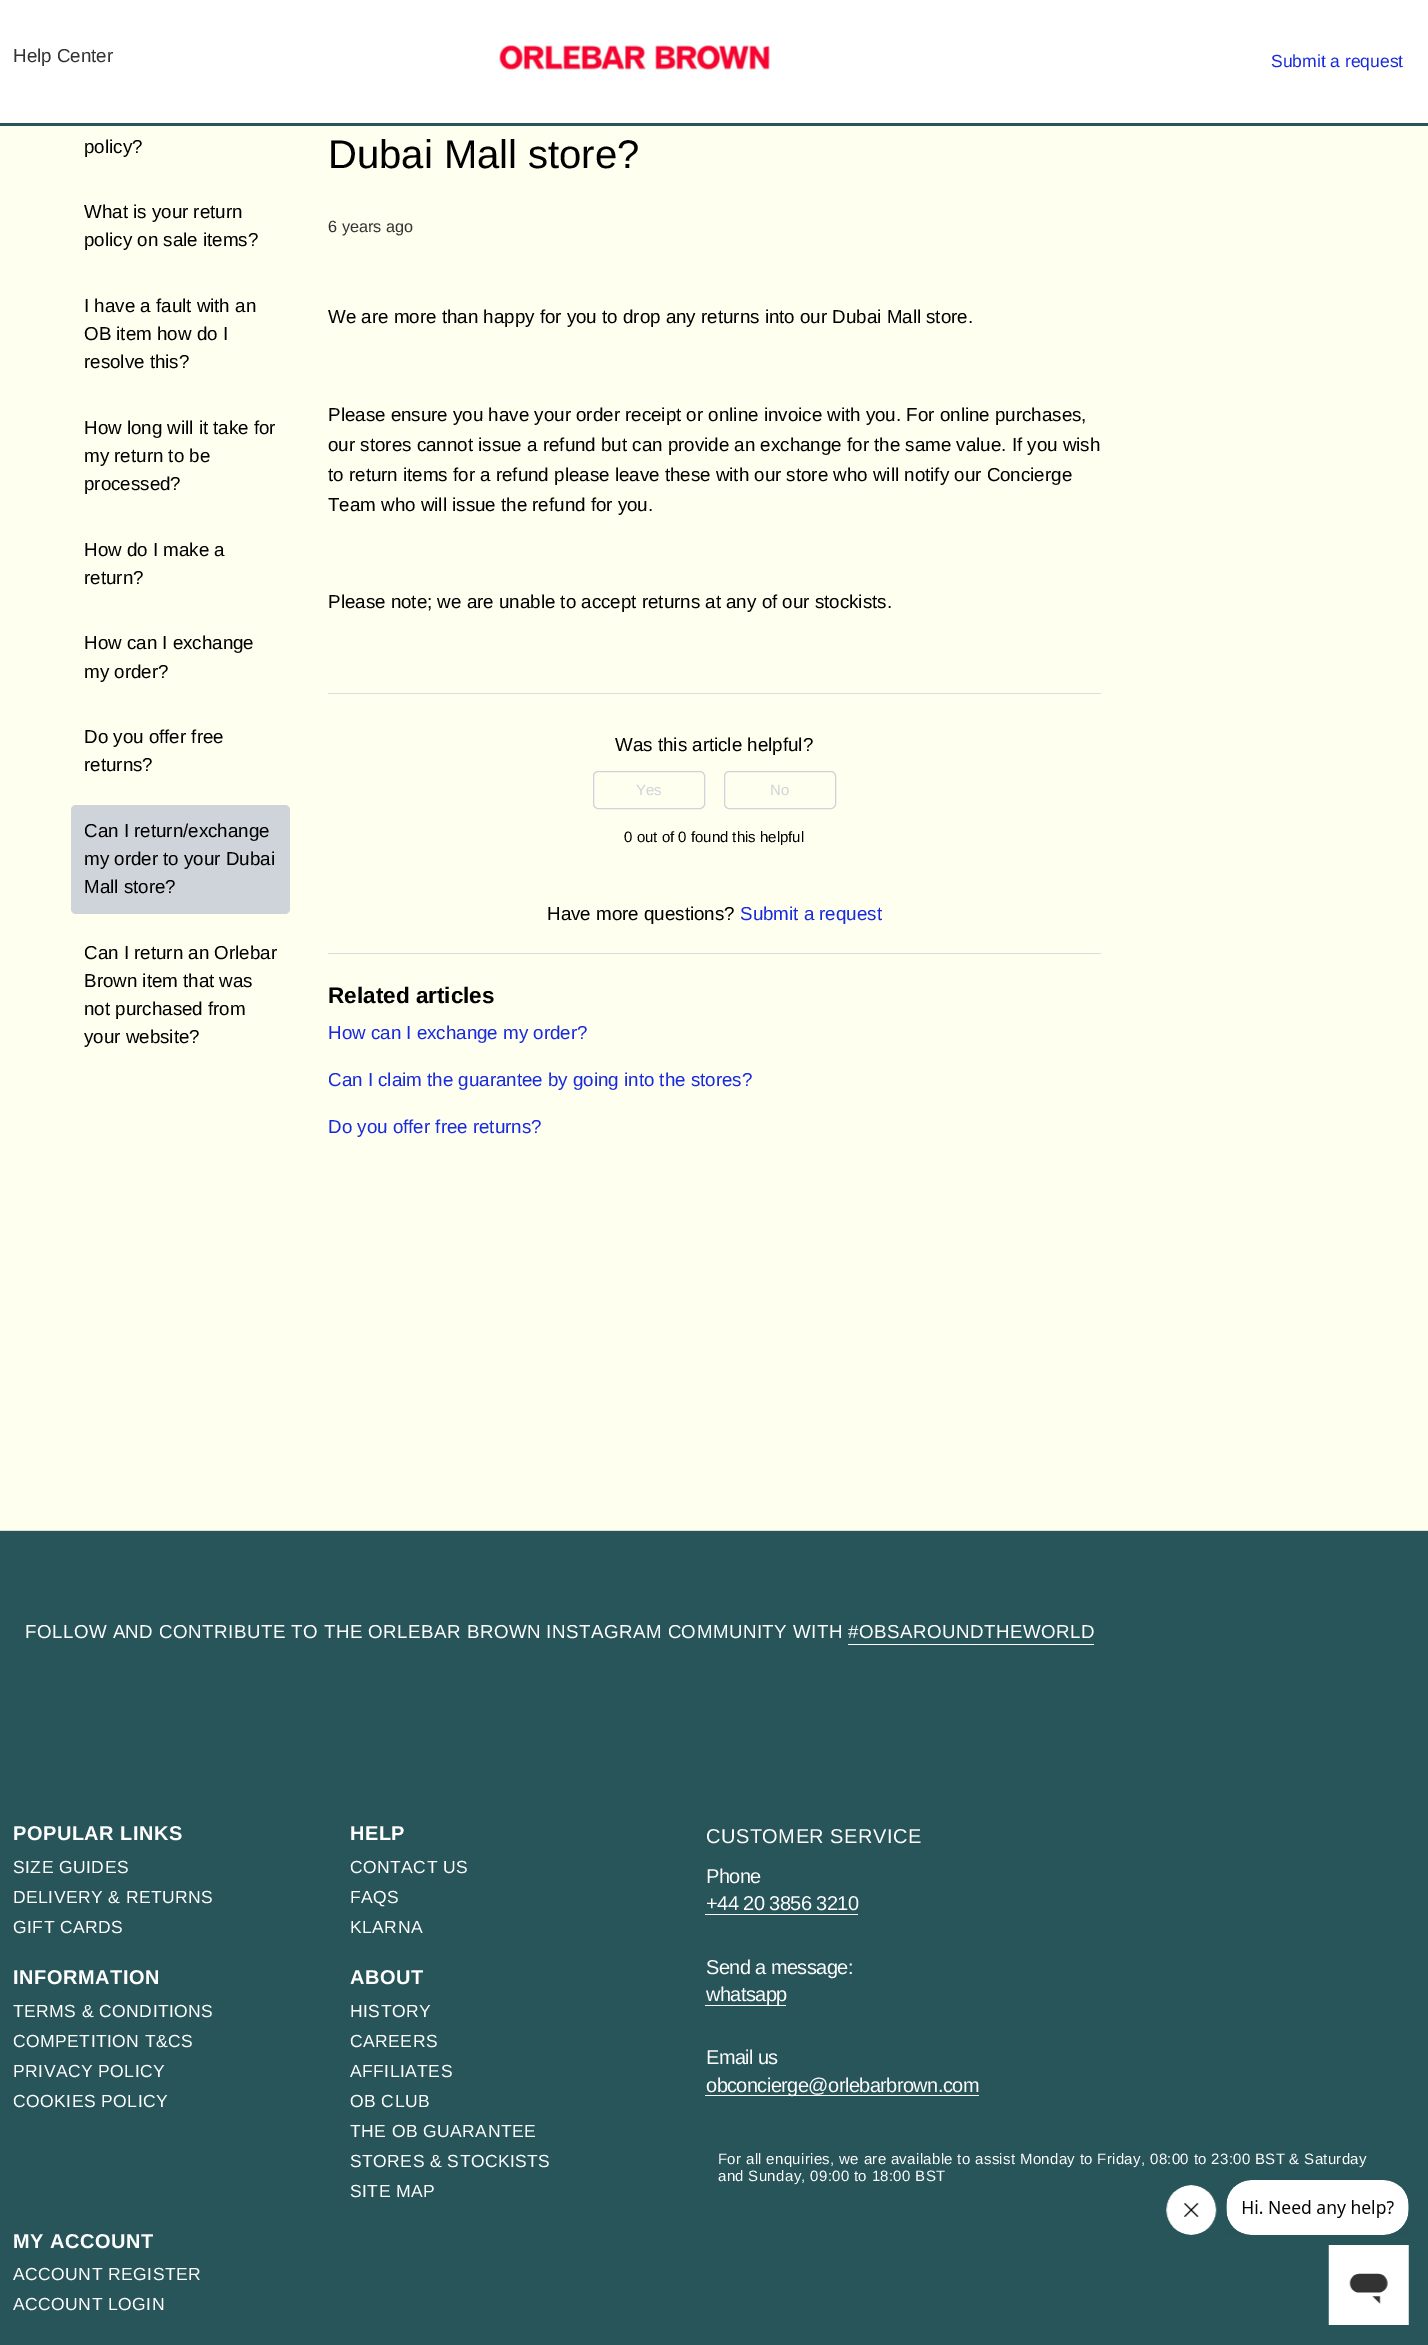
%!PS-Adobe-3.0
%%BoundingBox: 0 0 1428 2345
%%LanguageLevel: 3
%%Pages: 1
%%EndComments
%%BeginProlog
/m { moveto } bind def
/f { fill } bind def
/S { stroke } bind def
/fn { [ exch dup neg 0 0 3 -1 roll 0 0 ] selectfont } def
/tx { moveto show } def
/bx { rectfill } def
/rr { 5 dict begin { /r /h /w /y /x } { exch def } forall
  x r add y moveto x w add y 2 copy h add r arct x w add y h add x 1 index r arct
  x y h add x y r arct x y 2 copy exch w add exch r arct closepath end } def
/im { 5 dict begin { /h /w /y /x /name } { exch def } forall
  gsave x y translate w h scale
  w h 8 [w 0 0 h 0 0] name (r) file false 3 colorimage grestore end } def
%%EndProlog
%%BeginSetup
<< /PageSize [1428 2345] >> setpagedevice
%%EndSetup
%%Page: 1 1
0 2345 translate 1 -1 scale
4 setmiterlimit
1 1 0.941 setrgbcolor
0 0 1428 2345 bx
1 setgray
0 0 1428 123 bx
0.157 0.333 0.353 setrgbcolor
0 123 1428 3 bx
/LiberationSans-Regular 18.75 fn
0.2 setgray
(Help Center) 13 62 tx
(image0.raw) 499 45 272 27 im
/LiberationSans-Regular 17.5 fn
0.094 0.165 0.867 setrgbcolor
(Submit a request) 1271 67 tx
/LiberationSans-Regular 18.75 fn
0 setgray
(policy?) 84 153 tx
(What is your return) 84 218 tx
(policy on sale items?) 84 246 tx
(I have a fault with an) 84 312 tx
(OB item how do I) 84 340 tx
(resolve this?) 84 368 tx
(How long will it take for) 84 434 tx
(my return to be) 84 462 tx
(processed?) 84 490 tx
(How do I make a) 84 556 tx
(return?) 84 584 tx
(How can I exchange) 84 649 tx
(my order?) 84 678 tx
(Do you offer free) 84 743 tx
(returns?) 84 771 tx
0.808 0.831 0.855 setrgbcolor
71 805 219 109 5 rr f
0 setgray
(Can I return/exchange) 84 837 tx
(my order to your Dubai) 84 865 tx
(Mall store?) 84 893 tx
(Can I return an Orlebar) 84 959 tx
(Brown item that was) 84 987 tx
(not purchased from) 84 1015 tx
(your website?) 84 1043 tx
/LiberationSans-Regular 40 fn
(Dubai Mall store?) 328 168 tx
/LiberationSans-Regular 16.25 fn
0.2 setgray
(6 years ago) 328 232 tx
/LiberationSans-Regular 18.75 fn
0 setgray
(We are more than happy for you to drop any returns into our Dubai Mall store.) 328 323 tx
(Please ensure you have your order receipt or online invoice with you. For online purchases,) 328 421 tx
(our stores cannot issue a refund but can provide an exchange for the same value. If you wish) 328 451 tx
(to return items for a refund please leave these with our store who will notify our Concierge) 328 481 tx
(Team who will issue the refund for you.) 328 511 tx
(Please note; we are unable to accept returns at any of our stockists.) 328 608 tx
0.867 setgray
328 693 773 1 bx
0 setgray
(Was this article helpful?) 615 751 tx
0.808 0.831 0.855 setrgbcolor
593.5 771.5 111 37 4.5 rr S
/LiberationSans-Regular 15 fn
(Yes) 636 795 tx
724.5 771.5 111 37 4.5 rr S
(No) 770 795 tx
0 setgray
(0 out of 0 found this helpful) 624 842 tx
/LiberationSans-Regular 18.75 fn
(Have more questions?) 547 920 tx
0.094 0.165 0.867 setrgbcolor
(Submit a request) 740 920 tx
0.867 setgray
328 953 773 1 bx
/LiberationSans-Bold 22.5 fn
0 setgray
(Related articles) 328 1003 tx
/LiberationSans-Regular 18.75 fn
0.094 0.165 0.867 setrgbcolor
(How can I exchange my order?) 328 1039 tx
(Can I claim the guarantee by going into the stores?) 328 1086 tx
(Do you offer free returns?) 328 1133 tx
0.157 0.333 0.353 setrgbcolor
0 1531 1428 814 bx
0.867 setgray
0 1530 1428 1 bx
1 setgray
25 1638 m 0.45 0 (FOLLOW AND CONTRIBUTE TO THE ORLEBAR BROWN INSTAGRAM COMMUNITY WITH #OBSAROUNDTHEWORLD) ashow
848 1644 246 1 bx
/LiberationSans-Bold 20 fn
13 1840 m 0.5 0 (POPULAR LINKS) ashow
/LiberationSans-Regular 17.5 fn
13 1873 m 0.45 0 (SIZE GUIDES) ashow
13 1903 m 0.45 0 (DELIVERY & RETURNS) ashow
13 1933 m 0.45 0 (GIFT CARDS) ashow
/LiberationSans-Bold 20 fn
350 1840 m 0.5 0 (HELP) ashow
/LiberationSans-Regular 17.5 fn
350 1873 m 0.45 0 (CONTACT US) ashow
350 1903 m 0.45 0 (FAQS) ashow
350 1933 m 0.45 0 (KLARNA) ashow
/LiberationSans-Bold 20 fn
13 1984 m 0.5 0 (INFORMATION) ashow
/LiberationSans-Regular 17.5 fn
13 2017 m 0.45 0 (TERMS & CONDITIONS) ashow
13 2047 m 0.45 0 (COMPETITION T&CS) ashow
13 2077 m 0.45 0 (PRIVACY POLICY) ashow
13 2107 m 0.45 0 (COOKIES POLICY) ashow
/LiberationSans-Bold 20 fn
350 1984 m 0.5 0 (ABOUT) ashow
/LiberationSans-Regular 17.5 fn
350 2017 m 0.45 0 (HISTORY) ashow
350 2047 m 0.45 0 (CAREERS) ashow
350 2077 m 0.45 0 (AFFILIATES) ashow
350 2107 m 0.45 0 (OB CLUB) ashow
350 2137 m 0.45 0 (THE OB GUARANTEE) ashow
350 2167 m 0.45 0 (STORES & STOCKISTS) ashow
350 2197 m 0.45 0 (SITE MAP) ashow
/LiberationSans-Bold 20 fn
13 2248 m 0.5 0 (MY ACCOUNT) ashow
/LiberationSans-Regular 17.5 fn
13 2280 m 0.45 0 (ACCOUNT REGISTER) ashow
13 2310 m 0.45 0 (ACCOUNT LOGIN) ashow
/LiberationSans-Regular 20 fn
706 1843 m 0.5 0 (CUSTOMER SERVICE) ashow
706 1883 m -0.6 0 (Phone) ashow
706 1910 m -0.6 0 (+44 20 3856 3210) ashow
705 1914 153 1 bx
706 1974 m -0.6 0 (Send a message:) ashow
705 2005 81 1 bx
706 2001 m -0.6 0 (whatsapp) ashow
706 2064 m -0.6 0 (Email us) ashow
705 2095 274 1 bx
706 2092 m -0.6 0 (obconcierge@orlebarbrown.com) ashow
/LiberationSans-Regular 15 fn
718 2164 m 0.33 0 (For all enquiries, we are available to assist Monday to Friday, 08:00 to 23:00 BST & Saturday) ashow
718 2181 m 0.33 0 (and Sunday, 09:00 to 18:00 BST) ashow
(image1.raw) 1166 2185 51 50 im
(image2.raw) 1226 2180 183 55 im
(image3.raw) 1328 2245 81 80 im
showpage
%%EOF
